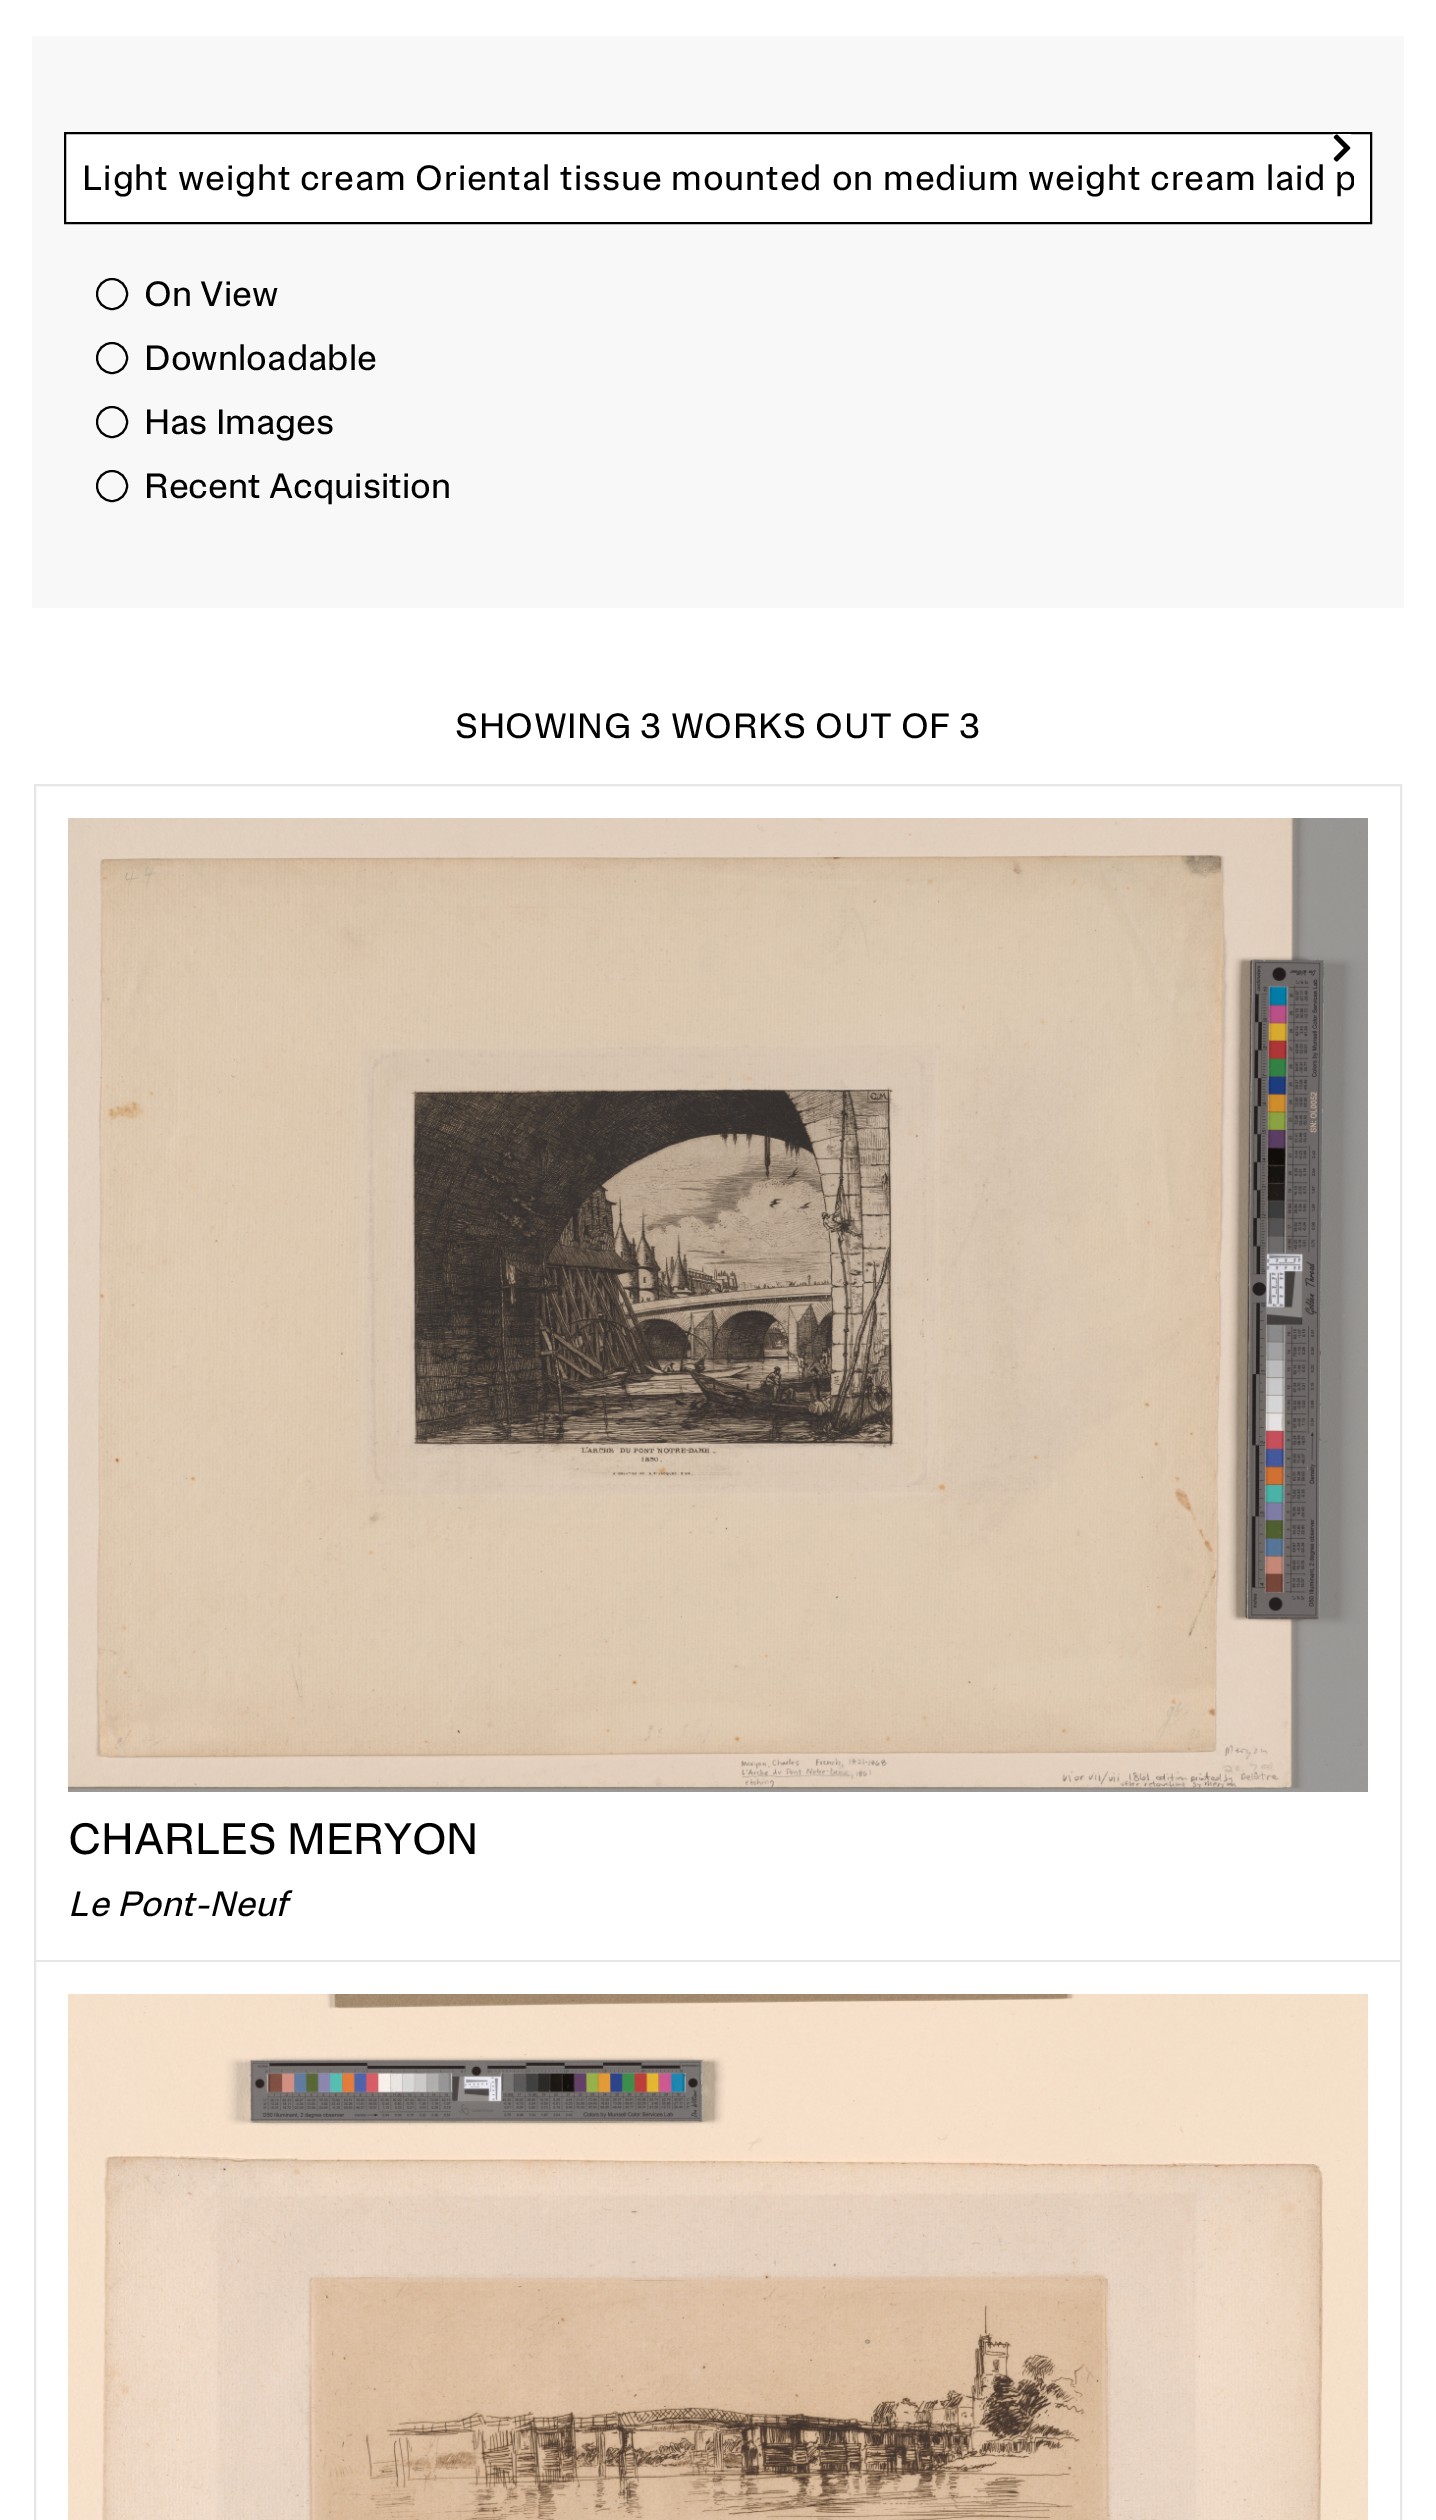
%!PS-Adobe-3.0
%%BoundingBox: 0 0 1436 2520
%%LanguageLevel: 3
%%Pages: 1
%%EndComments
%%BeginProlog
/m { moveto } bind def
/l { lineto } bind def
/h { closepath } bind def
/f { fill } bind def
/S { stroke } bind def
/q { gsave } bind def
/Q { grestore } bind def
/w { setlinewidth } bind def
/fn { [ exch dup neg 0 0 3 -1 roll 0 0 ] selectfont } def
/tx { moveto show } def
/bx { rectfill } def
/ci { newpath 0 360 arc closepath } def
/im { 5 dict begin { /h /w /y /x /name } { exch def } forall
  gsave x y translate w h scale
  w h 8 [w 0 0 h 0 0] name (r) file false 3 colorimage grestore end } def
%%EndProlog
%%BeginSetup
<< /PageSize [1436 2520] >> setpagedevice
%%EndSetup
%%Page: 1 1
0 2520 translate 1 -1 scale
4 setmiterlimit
1 setgray
0 0 1436 2520 bx
0.973 setgray
32 36 1372 572 bx
1 setgray
65 133 m 1371 133 l 1371 223 l 65 223 l h q f Q
0 setgray
2 w
S
(image0.raw) 1333 134 18 28 im
q
82 156 1272 44 rectclip
/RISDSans-Regular 32 fn
82 190 m 0.8 0 (Light weight cream Oriental tissue mounted on medium weight cream laid p) ashow
Q
112 294 15 ci S
/RISDSans-Regular 32 fn
(On View) 144 306 tx
112 358 15 ci S
(Downloadable) 144 370 tx
112 422 15 ci S
(Has Images) 144 434 tx
112 486 15 ci S
(Recent Acquisition) 144 498 tx
455 738 m 0.5 0 (SHOWING 3 WORKS OUT OF 3) ashow
0.902 setgray
35 785 1366 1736 rectstroke
(image1.raw) 68 818 1300 974 im
/RISDSans-Regular 40 fn
0 setgray
(CHARLES MERYON) 68 1854 tx
/RISDSans-Italic 32 fn
(Le Pont-Neuf) 68 1916 tx
0.902 setgray
36 1960 1364 2 bx
(image2.raw) 68 1994 1300 526 im
showpage
%%EOF
